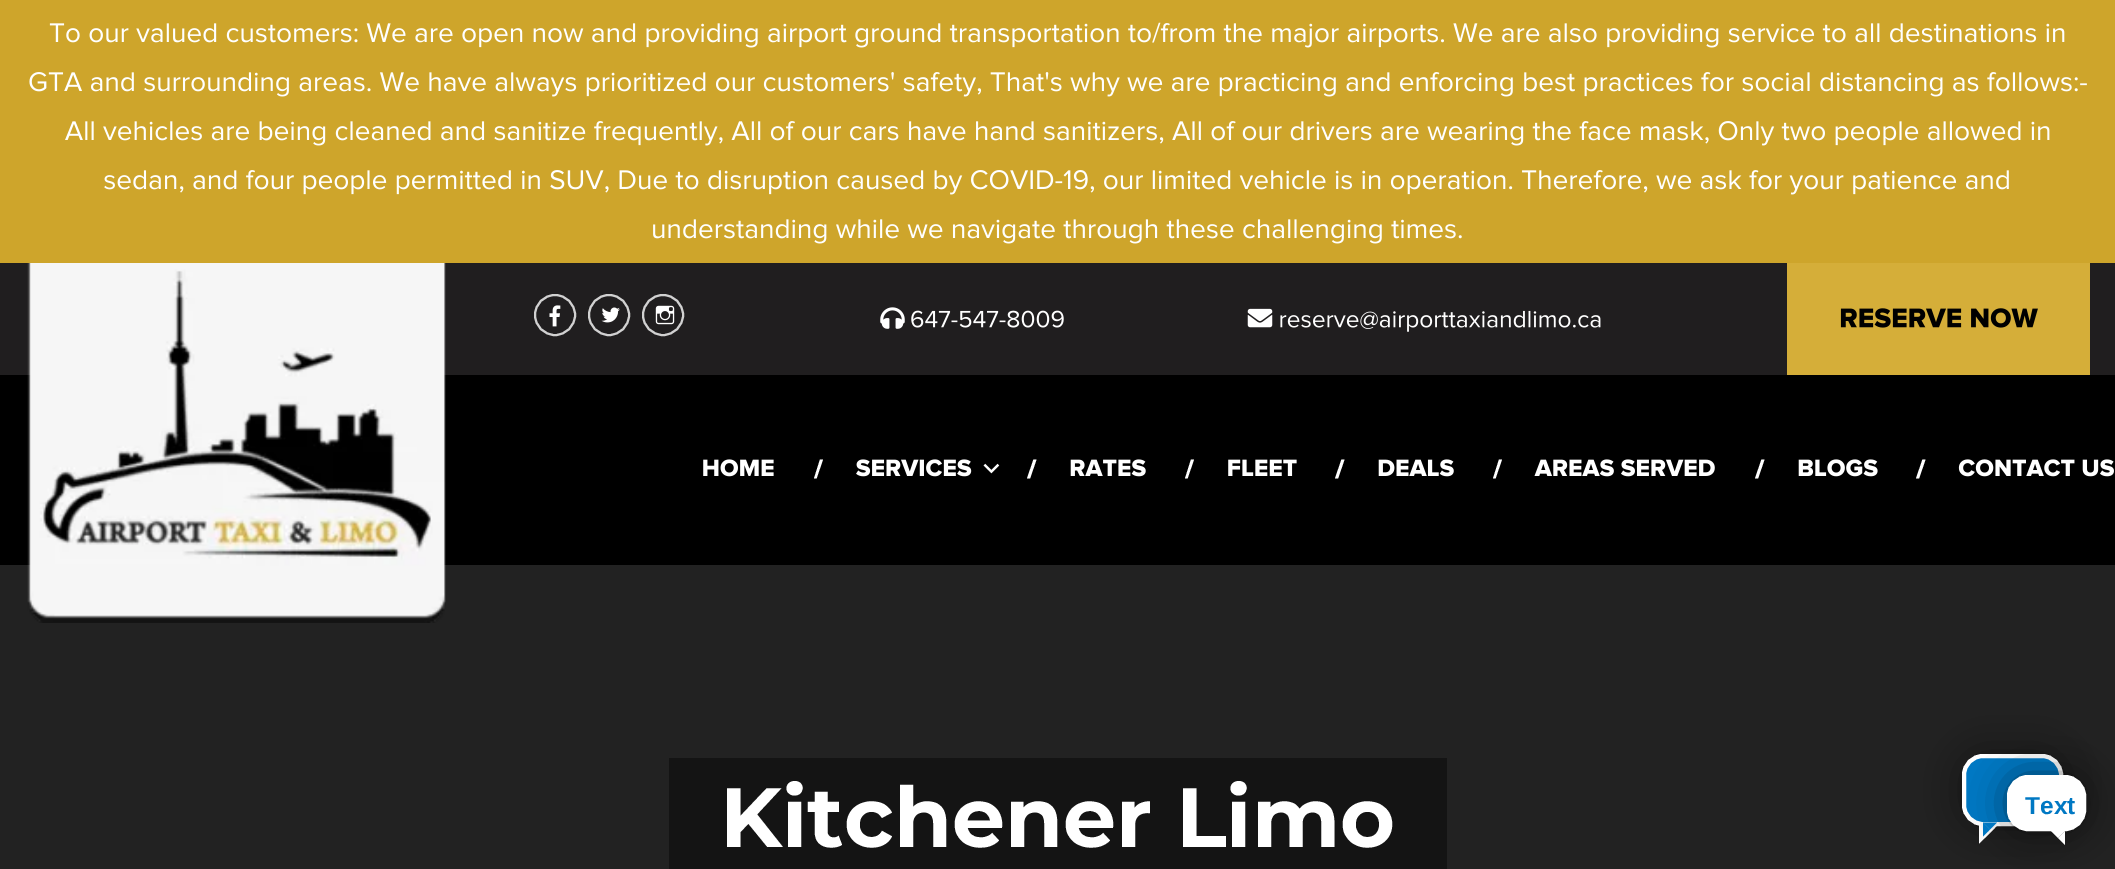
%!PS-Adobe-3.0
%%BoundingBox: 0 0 2115 869
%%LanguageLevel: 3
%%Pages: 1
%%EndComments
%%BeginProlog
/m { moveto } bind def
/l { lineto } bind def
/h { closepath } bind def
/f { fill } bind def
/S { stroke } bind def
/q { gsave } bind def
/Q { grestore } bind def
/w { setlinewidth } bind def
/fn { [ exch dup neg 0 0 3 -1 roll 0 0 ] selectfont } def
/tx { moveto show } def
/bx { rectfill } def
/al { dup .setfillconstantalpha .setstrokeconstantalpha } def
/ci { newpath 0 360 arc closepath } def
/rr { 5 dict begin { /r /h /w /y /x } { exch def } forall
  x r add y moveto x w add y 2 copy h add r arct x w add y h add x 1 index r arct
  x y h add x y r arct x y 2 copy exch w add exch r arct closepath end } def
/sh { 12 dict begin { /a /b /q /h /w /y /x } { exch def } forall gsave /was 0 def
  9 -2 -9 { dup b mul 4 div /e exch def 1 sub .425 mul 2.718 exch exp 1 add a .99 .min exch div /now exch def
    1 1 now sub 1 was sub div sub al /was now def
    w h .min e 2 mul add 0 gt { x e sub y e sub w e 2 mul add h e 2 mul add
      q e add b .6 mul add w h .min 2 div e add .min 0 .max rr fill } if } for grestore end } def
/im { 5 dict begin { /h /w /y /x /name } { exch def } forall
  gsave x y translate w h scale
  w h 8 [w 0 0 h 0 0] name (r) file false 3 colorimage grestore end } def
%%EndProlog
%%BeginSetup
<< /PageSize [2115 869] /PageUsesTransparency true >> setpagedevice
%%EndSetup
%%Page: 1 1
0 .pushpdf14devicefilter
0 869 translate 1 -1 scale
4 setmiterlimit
0 setgray
0 0 2115 869 bx
0.808 0.647 0.169 setrgbcolor
0 0 2115 263 bx
(image0.raw) 49 22 2016 26 im
(image1.raw) 29 72 2058 25 im
(image2.raw) 65 121 1985 25 im
(image3.raw) 104 170 1905 25 im
(image4.raw) 653 219 809 25 im
0.125 0.118 0.122 setrgbcolor
0 263 2115 112 bx
0.82 setgray
2 w
555 315 20 ci S
(image5.raw) 549 305 12 22 im
609 315 20 ci S
(image6.raw) 601 307 19 16 im
663 315 20 ci S
(image7.raw) 655 305 20 20 im
(image8.raw) 880 307 25 22 im
(image9.raw) 911 310 153 18 im
(image10.raw) 1247 308 26 20 im
(image11.raw) 1280 310 321 22 im
0.835 0.682 0.224 setrgbcolor
1787 263 303 112 bx
(image12.raw) 1840 308 198 20 im
0.133 setgray
0 565 2115 304 bx
(image13.raw) 27 263 419 360 im
(image14.raw) 703 459 71 18 im
1 setgray
816.5 478.5 m 814 478.5 l 820 459.5 l 823 459.5 l h f
(image15.raw) 856 459 116 18 im
(image16.raw) 983 463 17 11 im
1030 478.5 m 1027 478.5 l 1033.5 459.5 l 1036.5 459.5 l h f
(image17.raw) 1070 459 76 18 im
1187.5 478.5 m 1185 478.5 l 1191 459.5 l 1194 459.5 l h f
(image18.raw) 1228 459 69 17 im
1338 478.5 m 1335 478.5 l 1341.5 459.5 l 1344.5 459.5 l h f
(image19.raw) 1378 459 76 18 im
1495.5 478.5 m 1493 478.5 l 1499 459.5 l 1502 459.5 l h f
(image20.raw) 1534 459 181 18 im
1758 478.5 m 1755 478.5 l 1761.5 459.5 l 1764.5 459.5 l h f
(image21.raw) 1798 459 80 18 im
1919 478.5 m 1916 478.5 l 1922.5 459.5 l 1925.5 459.5 l h f
(image22.raw) 1958 459 156 18 im
0.078 setgray
669 758 778 111 bx
/Montserrat-Bold 84 fn
1 setgray
(Kitchener Limo) 720 847 tx
0 setgray
1962 754 101 72 21 17.5 0.5 sh
0 0.471 0.765 setrgbcolor
1964 756 97 68 19 rr q f Q
1 setgray
4 w
S
1979 822.5 m 2000 822.5 l 1990 833 l h f
1979 843.5 m 1979 822.5 l 1990 833 l h f
0 setgray
2007 775 79 56 21 17.5 0.5 sh
1 setgray
2009 777 75 52 19 rr q f Q
S
/LiberationSans-Bold 24.5 fn
0 0.471 0.765 setrgbcolor
(Text) 2025 814 tx
1 setgray
2051 831 m 2065 831 l 2058 838 l h f
2065 831 m 2065 845 l 2058 838 l h f
0 0.471 0.765 setrgbcolor
1983 822.5 m 1997 822.5 l 1990 829.5 l h f
1983 836.5 m 1983 822.5 l 1990 829.5 l h f
.poppdf14devicefilter showpage
%%EOF
